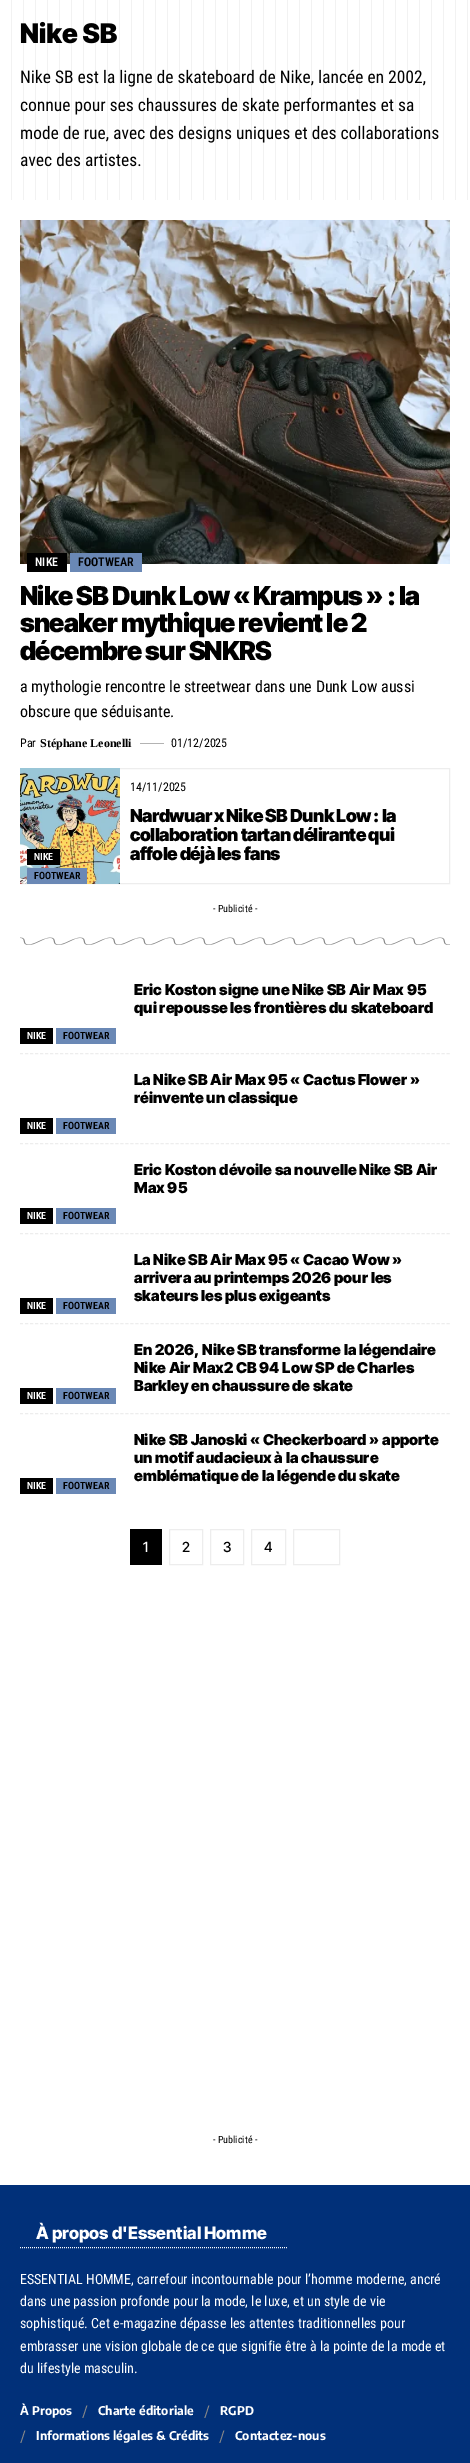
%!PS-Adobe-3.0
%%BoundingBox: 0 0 470 2463
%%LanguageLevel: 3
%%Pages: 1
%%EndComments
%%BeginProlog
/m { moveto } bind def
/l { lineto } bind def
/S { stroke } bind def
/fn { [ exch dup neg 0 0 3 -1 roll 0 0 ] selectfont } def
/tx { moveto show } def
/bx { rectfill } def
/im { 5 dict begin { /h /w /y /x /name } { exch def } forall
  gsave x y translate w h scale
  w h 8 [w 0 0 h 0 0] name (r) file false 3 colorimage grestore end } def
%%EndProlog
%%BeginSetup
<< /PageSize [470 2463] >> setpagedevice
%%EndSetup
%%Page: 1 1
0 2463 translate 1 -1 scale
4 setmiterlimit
1 setgray
0 0 470 2463 bx
/InterTight-Black 27 fn
0 setgray
(Nike SB) 20 43 tx
/RobotoCondensed-Regular 17.5 fn
(Nike SB est la ligne de skateboard de Nike, lancée en 2002,) 20 83 tx
(connue pour ses chaussures de skate performantes et sa) 20 111 tx
(mode de rue, avec des designs uniques et des collaborations) 20 139 tx
(avec des artistes.) 20 166 tx
(image0.raw) 11 0 457 200 im
(image1.raw) 20 220 430 344 im
27 553 40 19 bx
/RobotoCondensed-SemiBold 12 fn
1 setgray
(NIKE) 35 566 tx
0.416 0.533 0.71 setrgbcolor
70 553 72 19 bx
0 setgray
(FOOTWEAR) 78 566 tx
/InterTight-Black 26 fn
20 605 m -0.75 0 (Nike SB Dunk Low « Krampus » : la) ashow
20 632 m -0.75 0 (sneaker mythique revient le 2) ashow
20 660 m -0.75 0 (décembre sur SNKRS) ashow
/RobotoCondensed-Regular 16 fn
(a mythologie rencontre le streetwear dans une Dunk Low aussi) 20 692 tx
(obscure que séduisante.) 20 717 tx
/RobotoCondensed-Regular 12 fn
(Par) 20 747 tx
/LiberationSerif-Bold 12 fn
(Stéphane Leonelli) 40 747 tx
0.702 setgray
140 743 24 1 bx
/RobotoCondensed-Regular 12 fn
0 setgray
(01/12/2025) 171 747 tx
0.929 setgray
20.5 768.5 429 115 rectstroke
0 setgray
(14/11/2025) 130 791 tx
(image2.raw) 20 768 100 116 im
27 849 33 16 bx
/RobotoCondensed-SemiBold 10 fn
1 setgray
(NIKE) 34 860 tx
0.416 0.533 0.71 setrgbcolor
27 868 60 16 bx
0 setgray
(FOOTWEAR) 34 879 tx
/InterTight-Black 18 fn
130 822 m -0.55 0 (Nardwuar x Nike SB Dunk Low : la) ashow
130 841 m -0.55 0 (collaboration tartan délirante qui) ashow
130 860 m -0.55 0 (affole déjà les fans) ashow
/RobotoCondensed-Regular 10 fn
(- Publicité -) 213 912 tx
(image3.raw) 20 937 430 8 im
/InterTight-Black 15 fn
(Eric Koston signe une Nike SB Air Max 95) 134 995 tx
(qui repousse les frontières du skateboard) 134 1013 tx
20 1028 33 16 bx
/RobotoCondensed-SemiBold 10 fn
1 setgray
(NIKE) 27 1039 tx
0.416 0.533 0.71 setrgbcolor
56 1028 60 16 bx
0 setgray
(FOOTWEAR) 63 1039 tx
0.929 setgray
[3 2.02] 0 setdash
20 1053.5 m 450 1053.5 l S
/InterTight-Black 15 fn
0 setgray
(La Nike SB Air Max 95 « Cactus Flower ») 134 1085 tx
(réinvente un classique) 134 1103 tx
20 1118 33 16 bx
/RobotoCondensed-SemiBold 10 fn
1 setgray
(NIKE) 27 1129 tx
0.416 0.533 0.71 setrgbcolor
56 1118 60 16 bx
0 setgray
(FOOTWEAR) 63 1129 tx
0.929 setgray
20 1143.5 m 450 1143.5 l S
/InterTight-Black 15 fn
0 setgray
(Eric Koston dévoile sa nouvelle Nike SB Air) 134 1175 tx
(Max 95) 134 1193 tx
20 1208 33 16 bx
/RobotoCondensed-SemiBold 10 fn
1 setgray
(NIKE) 27 1219 tx
0.416 0.533 0.71 setrgbcolor
56 1208 60 16 bx
0 setgray
(FOOTWEAR) 63 1219 tx
0.929 setgray
20 1233.5 m 450 1233.5 l S
0 setgray
20 1298 33 16 bx
1 setgray
(NIKE) 27 1309 tx
0.416 0.533 0.71 setrgbcolor
56 1298 60 16 bx
0 setgray
(FOOTWEAR) 63 1309 tx
/InterTight-Black 15 fn
(La Nike SB Air Max 95 « Cacao Wow ») 134 1265 tx
(arrivera au printemps 2026 pour les) 134 1283 tx
(skateurs les plus exigeants) 134 1301 tx
0.929 setgray
20 1323.5 m 450 1323.5 l S
0 setgray
20 1388 33 16 bx
/RobotoCondensed-SemiBold 10 fn
1 setgray
(NIKE) 27 1399 tx
0.416 0.533 0.71 setrgbcolor
56 1388 60 16 bx
0 setgray
(FOOTWEAR) 63 1399 tx
/InterTight-Black 15 fn
(En 2026, Nike SB transforme la légendaire) 134 1355 tx
(Nike Air Max2 CB 94 Low SP de Charles) 134 1373 tx
(Barkley en chaussure de skate) 134 1391 tx
0.929 setgray
20 1413.5 m 450 1413.5 l S
0 setgray
20 1478 33 16 bx
/RobotoCondensed-SemiBold 10 fn
1 setgray
(NIKE) 27 1489 tx
0.416 0.533 0.71 setrgbcolor
56 1478 60 16 bx
0 setgray
(FOOTWEAR) 63 1489 tx
/InterTight-Black 15 fn
(Nike SB Janoski « Checkerboard » apporte) 134 1445 tx
(un motif audacieux à la chaussure) 134 1463 tx
(emblématique de la légende du skate) 134 1481 tx
130 1529 32 36 bx
/InterTight-Medium 14 fn
1 setgray
(1) 143 1552 tx
0.929 setgray
[] 0 setdash
169.5 1529.5 33 35 rectstroke
0 setgray
(2) 182 1552 tx
0.929 setgray
210.5 1529.5 33 35 rectstroke
0 setgray
(3) 223 1552 tx
0.929 setgray
251.5 1529.5 34 35 rectstroke
0 setgray
(4) 264 1552 tx
0.929 setgray
293.5 1529.5 46 35 rectstroke
/RobotoCondensed-Regular 10 fn
0 setgray
(- Publicité -) 213 2143 tx
0.004 0.188 0.475 setrgbcolor
0 2185 470 278 bx
1 setgray
[1 1] 0 setdash
20 2247.5 m 287 2247.5 l S
/InterTight-ExtraBold 17 fn
(À propos d'Essential Homme) 36 2239 tx
/RobotoCondensed-Regular 14 fn
(ESSENTIAL HOMME, carrefour incontournable pour l’homme moderne, ancré) 20 2284 tx
(dans une passion profonde pour la mode, le luxe, et un style de vie) 20 2306 tx
(sophistiqué. Cet e-magazine dépasse les attentes traditionnelles pour) 20 2328 tx
(embrasser une vision globale de ce que signifie être à la pointe de la mode et) 20 2351 tx
(du lifestyle masculin.) 20 2373 tx
/EncodeSansCondensed-Bold 12 fn
(À Propos) 20 2415 tx
/RobotoCondensed-Regular 16 fn
0.533 setgray
(/) 82 2417 tx
/EncodeSansCondensed-Bold 12 fn
1 setgray
(Charte éditoriale) 98 2415 tx
/RobotoCondensed-Regular 16 fn
0.533 setgray
(/) 204 2417 tx
/EncodeSansCondensed-Bold 12 fn
1 setgray
(RGPD) 220 2415 tx
/RobotoCondensed-Regular 16 fn
0.533 setgray
(/) 20 2442 tx
/EncodeSansCondensed-Bold 12 fn
1 setgray
(Informations légales & Crédits) 36 2440 tx
/RobotoCondensed-Regular 16 fn
0.533 setgray
(/) 219 2442 tx
/EncodeSansCondensed-Bold 12 fn
1 setgray
(Contactez-nous) 235 2440 tx
showpage
%%EOF
